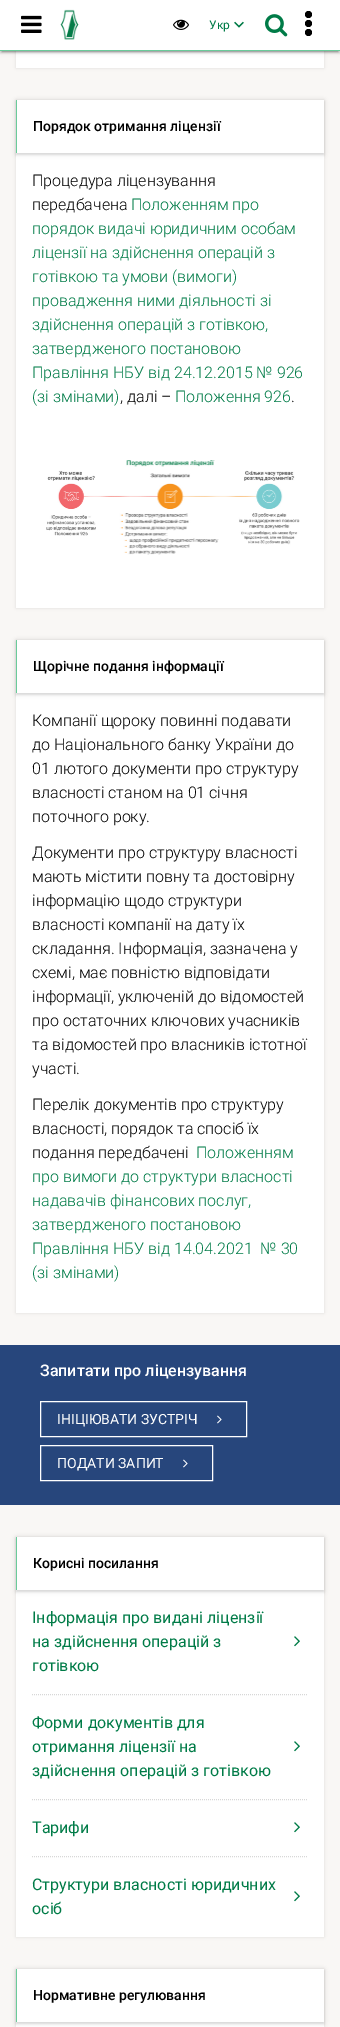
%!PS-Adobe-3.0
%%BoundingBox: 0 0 340 2027
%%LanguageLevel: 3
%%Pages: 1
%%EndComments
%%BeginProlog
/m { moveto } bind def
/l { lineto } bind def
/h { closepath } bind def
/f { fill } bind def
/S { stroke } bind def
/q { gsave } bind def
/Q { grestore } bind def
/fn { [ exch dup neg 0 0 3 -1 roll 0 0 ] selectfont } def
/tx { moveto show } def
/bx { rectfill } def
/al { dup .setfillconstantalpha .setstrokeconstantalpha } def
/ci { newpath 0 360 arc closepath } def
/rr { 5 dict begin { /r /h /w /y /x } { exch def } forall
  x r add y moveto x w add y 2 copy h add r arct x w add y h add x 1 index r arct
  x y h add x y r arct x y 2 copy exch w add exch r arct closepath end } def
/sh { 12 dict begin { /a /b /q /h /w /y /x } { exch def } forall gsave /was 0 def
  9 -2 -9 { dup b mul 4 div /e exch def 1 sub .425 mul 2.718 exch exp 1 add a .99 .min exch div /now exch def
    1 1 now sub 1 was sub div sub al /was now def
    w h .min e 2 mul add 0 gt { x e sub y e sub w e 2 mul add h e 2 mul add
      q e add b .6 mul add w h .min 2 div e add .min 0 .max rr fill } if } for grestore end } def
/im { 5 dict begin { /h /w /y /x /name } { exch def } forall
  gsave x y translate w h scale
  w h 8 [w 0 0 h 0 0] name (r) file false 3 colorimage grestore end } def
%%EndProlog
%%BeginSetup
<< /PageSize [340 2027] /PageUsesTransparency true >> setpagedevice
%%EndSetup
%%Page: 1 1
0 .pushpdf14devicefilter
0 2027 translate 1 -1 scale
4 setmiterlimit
0.976 0.969 0.961 setrgbcolor
0 0 340 2027 bx
0 setgray
16 -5 308 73 0 1.5 0.1 sh
1 setgray
16 51 308 17 bx
0 setgray
0 1 340 51 0 2.5 0.12 sh
2 5 336 47 0 0.5 0.2 sh
0 2 340 51 0 1 0.14 sh
1 setgray
0 0 340 50 bx
0.416 0.796 0.604 setrgbcolor
0 50 340 1 bx
(image0.raw) 60 9 19 31 im
(image1.raw) 21 15 21 18 im
(image2.raw) 173 19 16 11 im
/Roboto-Regular 12 fn
0 0.482 0.278 setrgbcolor
(Укр) 209 29 tx
(image3.raw) 234 21 10 7 im
(image4.raw) 265 14 23 23 im
0 setgray
308.5 14.5 3.5 ci f
308.5 23.5 3.5 ci f
308.5 32.5 3.5 ci f
16 100 308 508 0 1.5 0.1 sh
1 setgray
16 100 308 508 bx
q
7 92 m 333 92 l 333 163 l 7 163 l h 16 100 m 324 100 l 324 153 l 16 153 l h eoclip newpath
0 setgray
16 101 308 53 0 2.5 0.08 sh
Q
q
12 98 m 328 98 l 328 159 l 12 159 l h 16 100 m 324 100 l 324 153 l 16 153 l h eoclip newpath
0 setgray
16 102 308 53 0 1 0.1 sh
Q
0.416 0.796 0.604 setrgbcolor
16 100 1 53 bx
/Roboto-Medium 14 fn
0 setgray
(Порядок отримання ліцензії) 33 131 tx
/Roboto-Light 16 fn
(Процедура ліцензування) 32 186 tx
(передбачена) 32 210 tx
0 0.482 0.278 setrgbcolor
(Положенням про) 131 210 tx
(порядок видачі юридичним особам) 32 234 tx
(ліцензії на здійснення операцій з) 32 258 tx
(готівкою та умови \(вимоги\)) 32 282 tx
(провадження ними діяльності зі) 32 306 tx
(здійснення операцій з готівкою,) 32 330 tx
(затвердженого постановою) 32 354 tx
(Правління НБУ від 24.12.2015 № 926) 32 378 tx
(\(зі змінами\)) 32 402 tx
0 setgray
(, далі –) 120 402 tx
0 0.482 0.278 setrgbcolor
(Положення 926) 175 402 tx
0 setgray
(.) 291 402 tx
(image5.raw) 46 460 254 95 im
16 640 308 673 0 1.5 0.1 sh
1 setgray
16 640 308 673 bx
q
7 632 m 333 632 l 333 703 l 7 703 l h 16 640 m 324 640 l 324 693 l 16 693 l h eoclip newpath
0 setgray
16 641 308 53 0 2.5 0.08 sh
Q
q
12 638 m 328 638 l 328 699 l 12 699 l h 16 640 m 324 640 l 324 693 l 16 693 l h eoclip newpath
0 setgray
16 642 308 53 0 1 0.1 sh
Q
0.416 0.796 0.604 setrgbcolor
16 640 1 53 bx
/Roboto-Medium 14 fn
0 setgray
(Щорічне подання інформації) 33 671 tx
/Roboto-Light 16 fn
(Компанії щороку повинні подавати) 32 726 tx
(до Національного банку України до) 32 750 tx
(01 лютого документи про структуру) 32 774 tx
(власності станом на 01 січня) 32 798 tx
(поточного року.) 32 822 tx
(Документи про структуру власності) 32 858 tx
(мають містити повну та достовірну) 32 882 tx
(інформацію щодо структури) 32 906 tx
(власності компанії на дату їх) 32 930 tx
(складання. Інформація, зазначена у) 32 954 tx
(схемі, має повністю відповідати) 32 978 tx
(інформації, уключеній до відомостей) 32 1002 tx
(про остаточних ключових учасників) 32 1026 tx
(та відомостей про власників істотної) 32 1050 tx
(участі.) 32 1074 tx
(Перелік документів про структуру) 32 1110 tx
(власності, порядок та спосіб їх) 32 1134 tx
(подання передбачені) 32 1158 tx
0 0.482 0.278 setrgbcolor
(Положенням) 196 1158 tx
(про вимоги до структури власності) 32 1182 tx
(надавачів фінансових послуг,) 32 1206 tx
(затвердженого постановою) 32 1230 tx
(Правління НБУ від 14.04.2021  № 30) 32 1254 tx
(\(зі змінами\)) 32 1278 tx
0.153 0.275 0.486 setrgbcolor
0 1345 340 160 bx
/Roboto-Medium 16 fn
1 setgray
(Запитати про ліцензування) 40 1376 tx
40.5 1401.5 206 35 rectstroke
/Roboto-Regular 14 fn
(ІНІЦІЮВАТИ ЗУСТРІЧ) 57 1424 tx
(image6.raw) 217 1415 5 9 im
40.5 1445.5 172 35 rectstroke
(ПОДАТИ ЗАПИТ) 57 1468 tx
(image6.raw) 183 1459 5 9 im
0 setgray
16 1537 308 400 0 1.5 0.1 sh
1 setgray
16 1537 308 400 bx
q
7 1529 m 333 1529 l 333 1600 l 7 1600 l h 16 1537 m 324 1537 l 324 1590 l 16 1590 l h eoclip newpath
0 setgray
16 1538 308 53 0 2.5 0.08 sh
Q
q
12 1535 m 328 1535 l 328 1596 l 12 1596 l h 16 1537 m 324 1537 l 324 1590 l 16 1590 l h eoclip newpath
0 setgray
16 1539 308 53 0 1 0.1 sh
Q
0.416 0.796 0.604 setrgbcolor
16 1537 1 53 bx
/Roboto-Medium 14 fn
0 setgray
(Корисні посилання) 33 1568 tx
0.843 setgray
[1 1] 0 setdash
32 1694.5 m 308 1694.5 l S
/Roboto-Regular 16 fn
0 0.482 0.278 setrgbcolor
(Інформація про видані ліцензії) 32 1623 tx
(на здійснення операцій з) 32 1647 tx
(image7.raw) 294 1636 6 11 im
(готівкою) 32 1671 tx
0.843 setgray
32 1799.5 m 308 1799.5 l S
0 0.482 0.278 setrgbcolor
(Форми документів для) 32 1728 tx
(отримання ліцензії на) 32 1752 tx
(image7.raw) 294 1741 6 11 im
(здійснення операцій з готівкою) 32 1776 tx
0.843 setgray
32 1856.5 m 308 1856.5 l S
0 0.482 0.278 setrgbcolor
(Тарифи) 32 1833 tx
(image7.raw) 294 1822 6 11 im
(Структури власності юридичних) 32 1890 tx
(image7.raw) 294 1891 6 11 im
(осіб) 32 1914 tx
0 setgray
16 1969 308 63 0 1.5 0.1 sh
1 setgray
16 1969 308 58 bx
q
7 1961 m 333 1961 l 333 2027 l 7 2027 l h 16 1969 m 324 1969 l 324 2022 l 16 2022 l h eoclip newpath
0 setgray
16 1970 308 53 0 2.5 0.08 sh
Q
q
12 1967 m 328 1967 l 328 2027 l 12 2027 l h 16 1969 m 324 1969 l 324 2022 l 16 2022 l h eoclip newpath
0 setgray
16 1971 308 53 0 1 0.1 sh
Q
0.416 0.796 0.604 setrgbcolor
16 1969 1 53 bx
/Roboto-Medium 14 fn
0 setgray
(Нормативне регулювання) 33 2000 tx
.poppdf14devicefilter showpage
%%EOF
